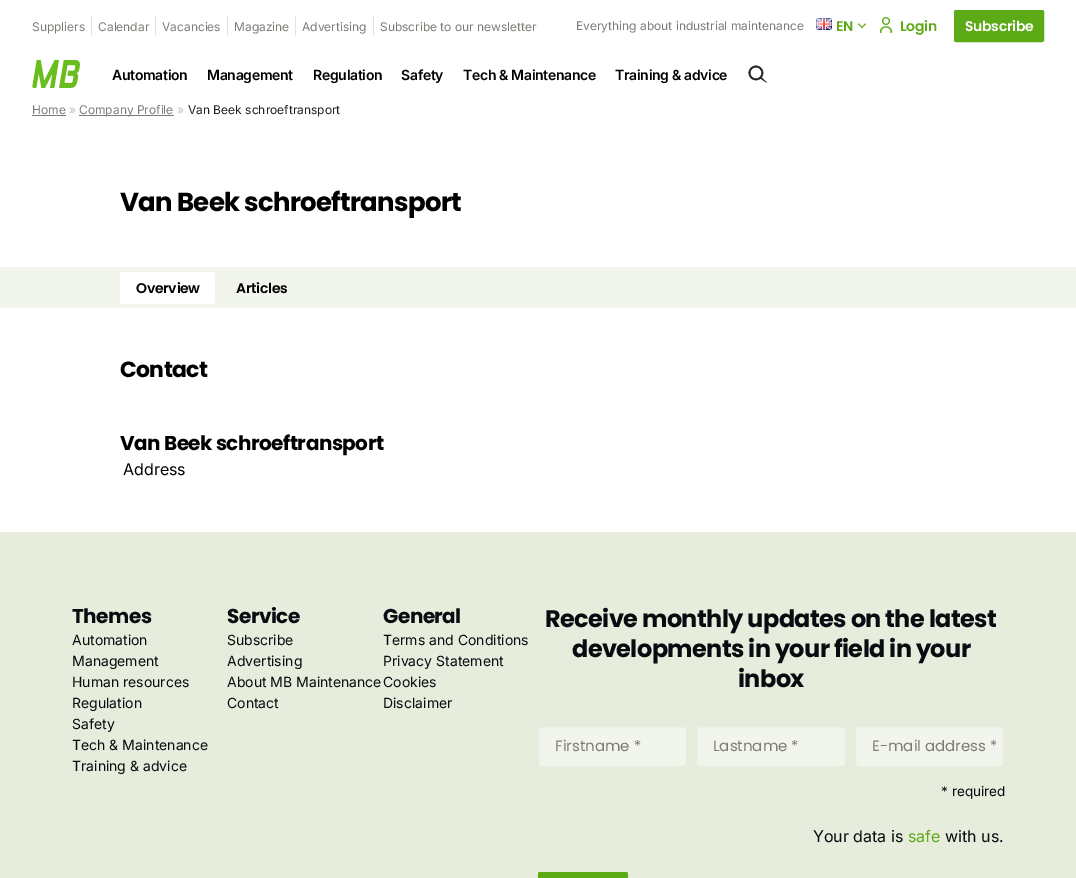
%!PS-Adobe-3.0
%%BoundingBox: 0 0 1076 878
%%LanguageLevel: 3
%%Pages: 1
%%EndComments
%%BeginProlog
/m { moveto } bind def
/f { fill } bind def
/S { stroke } bind def
/q { gsave } bind def
/Q { grestore } bind def
/fn { [ exch dup neg 0 0 3 -1 roll 0 0 ] selectfont } def
/tx { moveto show } def
/bx { rectfill } def
/rr { 5 dict begin { /r /h /w /y /x } { exch def } forall
  x r add y moveto x w add y 2 copy h add r arct x w add y h add x 1 index r arct
  x y h add x y r arct x y 2 copy exch w add exch r arct closepath end } def
/im { 5 dict begin { /h /w /y /x /name } { exch def } forall
  gsave x y translate w h scale
  w h 8 [w 0 0 h 0 0] name (r) file false 3 colorimage grestore end } def
%%EndProlog
%%BeginSetup
<< /PageSize [1076 878] >> setpagedevice
%%EndSetup
%%Page: 1 1
0 878 translate 1 -1 scale
4 setmiterlimit
1 setgray
0 0 1076 878 bx
0.886 0.886 0.855 setrgbcolor
91 16 1 20 bx
/Inter-Regular 12 fn
0.486 0.486 0.467 setrgbcolor
(Suppliers) 32 31 tx
0.886 0.886 0.855 setrgbcolor
155 16 1 20 bx
0.486 0.486 0.467 setrgbcolor
(Calendar) 98 31 tx
0.886 0.886 0.855 setrgbcolor
227 16 1 20 bx
0.486 0.486 0.467 setrgbcolor
(Vacancies) 162 31 tx
0.886 0.886 0.855 setrgbcolor
295 16 1 20 bx
0.486 0.486 0.467 setrgbcolor
(Magazine) 234 31 tx
0.886 0.886 0.855 setrgbcolor
373 16 1 20 bx
0.486 0.486 0.467 setrgbcolor
(Advertising) 302 31 tx
(Subscribe to our newsletter) 380 31 tx
(Everything about industrial maintenance) 576 30 tx
(image0.raw) 816 18 16 12 im
/Poppins-SemiBold 14 fn
0.361 0.667 0.082 setrgbcolor
836 31 m -0.3 0 (EN) ashow
(image1.raw) 858 23 8 5 im
(image2.raw) 879 17 14 16 im
900 31 m -0.3 0 (Login) ashow
954.5 10.5 89 31 1.5 rr q f Q
S
1 setgray
965 31 m -0.3 0 (Subscribe) ashow
(image3.raw) 32 60 48 28 im
/Inter-SemiBold 14 fn
0 setgray
112 80 m -0.3 0 (Automation) ashow
207 80 m -0.3 0 (Management) ashow
313 80 m -0.3 0 (Regulation) ashow
401 80 m -0.3 0 (Safety) ashow
463 80 m -0.3 0 (Tech & Maintenance) ashow
615 80 m -0.3 0 (Training & advice) ashow
(image4.raw) 748 65 19 18 im
/Inter-Regular 12 fn
0.486 0.486 0.467 setrgbcolor
(Home) 32 114 tx
32 115 34 1 bx
0.745 0.745 0.733 setrgbcolor
(») 69 114 tx
0.486 0.486 0.467 setrgbcolor
79 115 95 1 bx
(Company Profile) 79 114 tx
0.745 0.745 0.733 setrgbcolor
(») 177 114 tx
0.122 setgray
(Van Beek schroeftransport) 188 114 tx
0.949 0.961 0.925 setrgbcolor
0 267 1076 41 bx
/Poppins-Bold 26 fn
0 setgray
120 211 m -0.7 0 (Van Beek schroeftransport) ashow
1 setgray
120 272 95 32 2 rr f
/Poppins-SemiBold 14 fn
0 setgray
136 293 m -0.3 0 (Overview) ashow
236 293 m -0.3 0 (Articles) ashow
/Poppins-Bold 22 fn
120 377 m -0.7 0 (Contact) ashow
/Poppins-Bold 20 fn
120 450 m -0.5 0 (Van Beek schroeftransport) ashow
/Inter-Regular 16 fn
(Address) 123 475 tx
0.906 0.925 0.863 setrgbcolor
0 532 1076 346 bx
/Poppins-Bold 20 fn
0.031 0.043 0.059 setrgbcolor
72 623 m -0.5 0 (Themes) ashow
/Inter-Regular 14 fn
(Automation) 72 645 tx
(Management) 72 666 tx
(Human resources) 72 687 tx
(Regulation) 72 708 tx
(Safety) 72 729 tx
(Tech & Maintenance) 72 750 tx
(Training & advice) 72 771 tx
/Poppins-Bold 20 fn
227 623 m -0.5 0 (Service) ashow
/Inter-Regular 14 fn
(Subscribe) 227 645 tx
(Advertising) 227 666 tx
(About MB Maintenance) 227 687 tx
(Contact) 227 708 tx
/Poppins-Bold 20 fn
383 623 m -0.5 0 (General) ashow
/Inter-Regular 14 fn
(Terms and Conditions) 383 645 tx
(Privacy Statement) 383 666 tx
(Cookies) 383 687 tx
(Disclaimer) 383 708 tx
/Poppins-Bold 24 fn
545 627 m -0.6 0 (Receive monthly updates on the latest) ashow
572 657 m -0.6 0 (developments in your field in your) ashow
738 687 m -0.6 0 (inbox) ashow
0.949 0.961 0.925 setrgbcolor
538.5 726.5 148 40 2.5 rr q f Q
0.906 0.925 0.863 setrgbcolor
S
/Poppins-Regular 15 fn
0.486 0.486 0.467 setrgbcolor
(Firstname *) 555 751 tx
0.949 0.961 0.925 setrgbcolor
696.5 726.5 149 40 2.5 rr q f Q
0.906 0.925 0.863 setrgbcolor
S
0.486 0.486 0.467 setrgbcolor
(Lastname *) 713 751 tx
0.949 0.961 0.925 setrgbcolor
855.5 726.5 148 40 2.5 rr q f Q
0.906 0.925 0.863 setrgbcolor
S
0.486 0.486 0.467 setrgbcolor
(E-mail address *) 872 751 tx
/Inter-Regular 13.5 fn
0.031 0.043 0.059 setrgbcolor
(* required) 941 796 tx
/Inter-Regular 16 fn
(Your data is) 813 842 tx
0.361 0.667 0.082 setrgbcolor
(safe) 908 842 tx
0.031 0.043 0.059 setrgbcolor
(with us.) 945 842 tx
0.361 0.667 0.082 setrgbcolor
538 872 90 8 2 rr f
showpage
%%EOF
